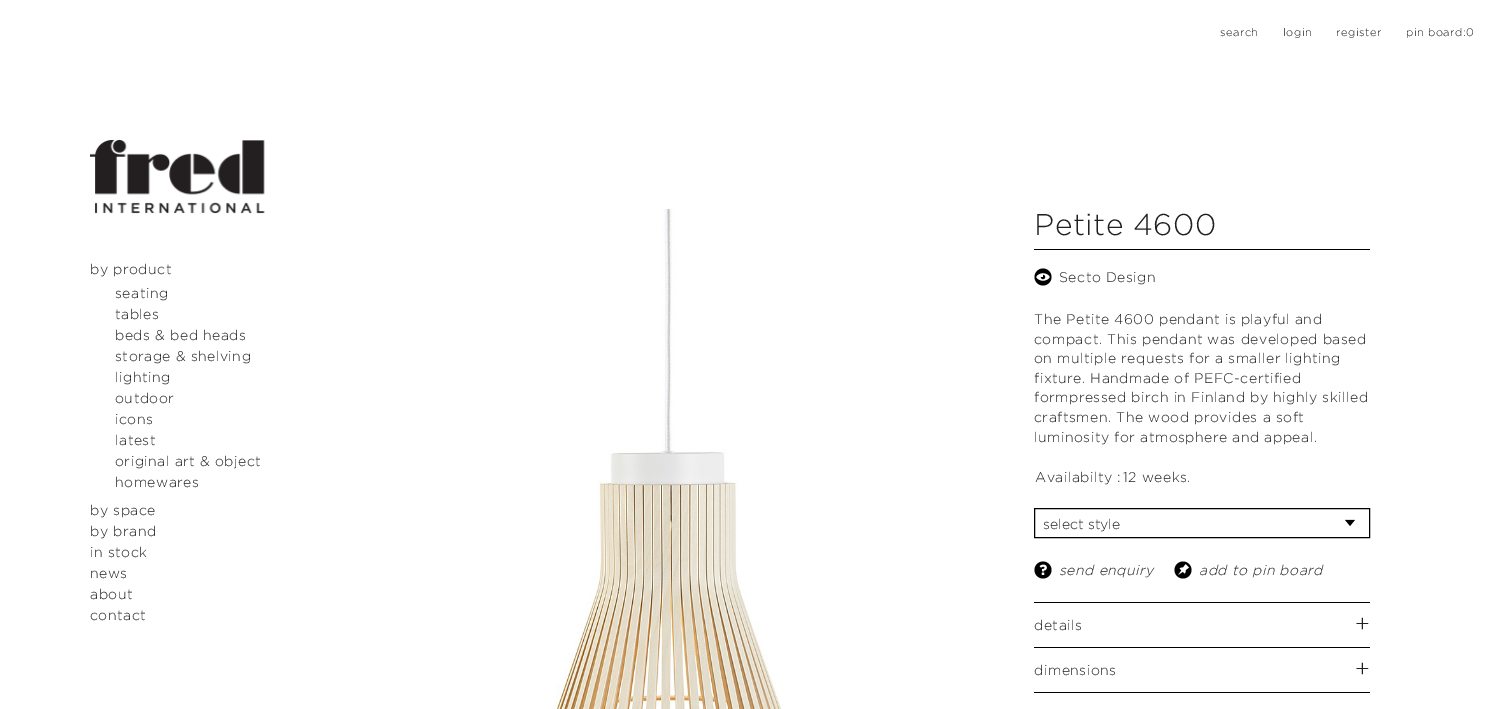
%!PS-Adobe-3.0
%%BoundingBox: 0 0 1509 709
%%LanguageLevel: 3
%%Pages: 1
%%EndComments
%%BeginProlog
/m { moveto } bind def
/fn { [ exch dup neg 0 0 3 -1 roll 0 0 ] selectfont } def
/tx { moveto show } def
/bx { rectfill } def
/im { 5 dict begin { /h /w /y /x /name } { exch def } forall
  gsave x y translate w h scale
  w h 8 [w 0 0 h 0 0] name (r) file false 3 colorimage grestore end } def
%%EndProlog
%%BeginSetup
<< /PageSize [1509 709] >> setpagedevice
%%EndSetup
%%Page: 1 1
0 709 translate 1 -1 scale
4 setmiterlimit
1 setgray
0 0 1509 709 bx
/Gotham-Light 11 fn
0.137 0.122 0.125 setrgbcolor
1220 36 m 0.5 0 (search) ashow
1283 36 m 0.5 0 (login) ashow
1336 36 m 0.5 0 (register) ashow
1406 36 m 0.5 0 (pin board:0) ashow
(image0.raw) 90 140 175 74 im
/Gotham-Light 14 fn
90 274 m 0.5 0 (by product) ashow
115 298 m 0.5 0 (seating) ashow
115 319 m 0.5 0 (tables) ashow
115 340 m 0.5 0 (beds & bed heads) ashow
115 361 m 0.5 0 (storage & shelving) ashow
115 382 m 0.5 0 (lighting) ashow
115 403 m 0.5 0 (outdoor) ashow
115 424 m 0.5 0 (icons) ashow
115 445 m 0.5 0 (latest) ashow
115 466 m 0.5 0 (original art & object) ashow
115 487 m 0.5 0 (homewares) ashow
90 515 m 0.5 0 (by space) ashow
90 536 m 0.5 0 (by brand) ashow
90 557 m 0.5 0 (in stock) ashow
90 578 m 0.5 0 (news) ashow
90 599 m 0.5 0 (about) ashow
90 620 m 0.5 0 (contact) ashow
(image1.raw) 555 209 226 500 im
0 setgray
1034 249 336 1 bx
/Gotham-Light 30 fn
0.137 0.122 0.125 setrgbcolor
1034 235 m 0.5 0 (Petite 4600) ashow
(image2.raw) 1034 268 18 18 im
/Gotham-Light 14 fn
1059 282 m 0.5 0 (Secto Design) ashow
1034 324 m 0.5 0 (The Petite 4600 pendant is playful and) ashow
1034 344 m 0.5 0 (compact. This pendant was developed based) ashow
1034 363 m 0.5 0 (on multiple requests for a smaller lighting) ashow
1034 383 m 0.5 0 (fixture. Handmade of PEFC-certified) ashow
1034 402 m 0.5 0 (formpressed birch in Finland by highly skilled) ashow
1034 422 m 0.5 0 (craftsmen. The wood provides a soft) ashow
1034 442 m 0.5 0 (luminosity for atmosphere and appeal.) ashow
1035 482 m 0.5 0 (Availabilty :) ashow
1123 482 m 0.5 0 (12 weeks.) ashow
(image3.raw) 1345 519 10 7 im
0 setgray
1034.5 508.5 335 29 rectstroke
0.137 0.122 0.125 setrgbcolor
(select style) 1043 529 tx
(image4.raw) 1034 561 18 18 im
/Gotham-LightItalic 14 fn
1059 575 m 0.5 0 (send enquiry) ashow
(image5.raw) 1174 561 18 18 im
1199 575 m 0.5 0 (add to pin board) ashow
0 setgray
1034 602 336 1 bx
1034 647 336 1 bx
/Gotham-Light 14 fn
0.137 0.122 0.125 setrgbcolor
1034 630 m 0.5 0 (details) ashow
/Gotham-Light 24 fn
1355 632 m 0.5 0 (+) ashow
0 setgray
1034 692 336 1 bx
/Gotham-Light 14 fn
0.137 0.122 0.125 setrgbcolor
1034 675 m 0.5 0 (dimensions) ashow
/Gotham-Light 24 fn
1355 677 m 0.5 0 (+) ashow
showpage
%%EOF
